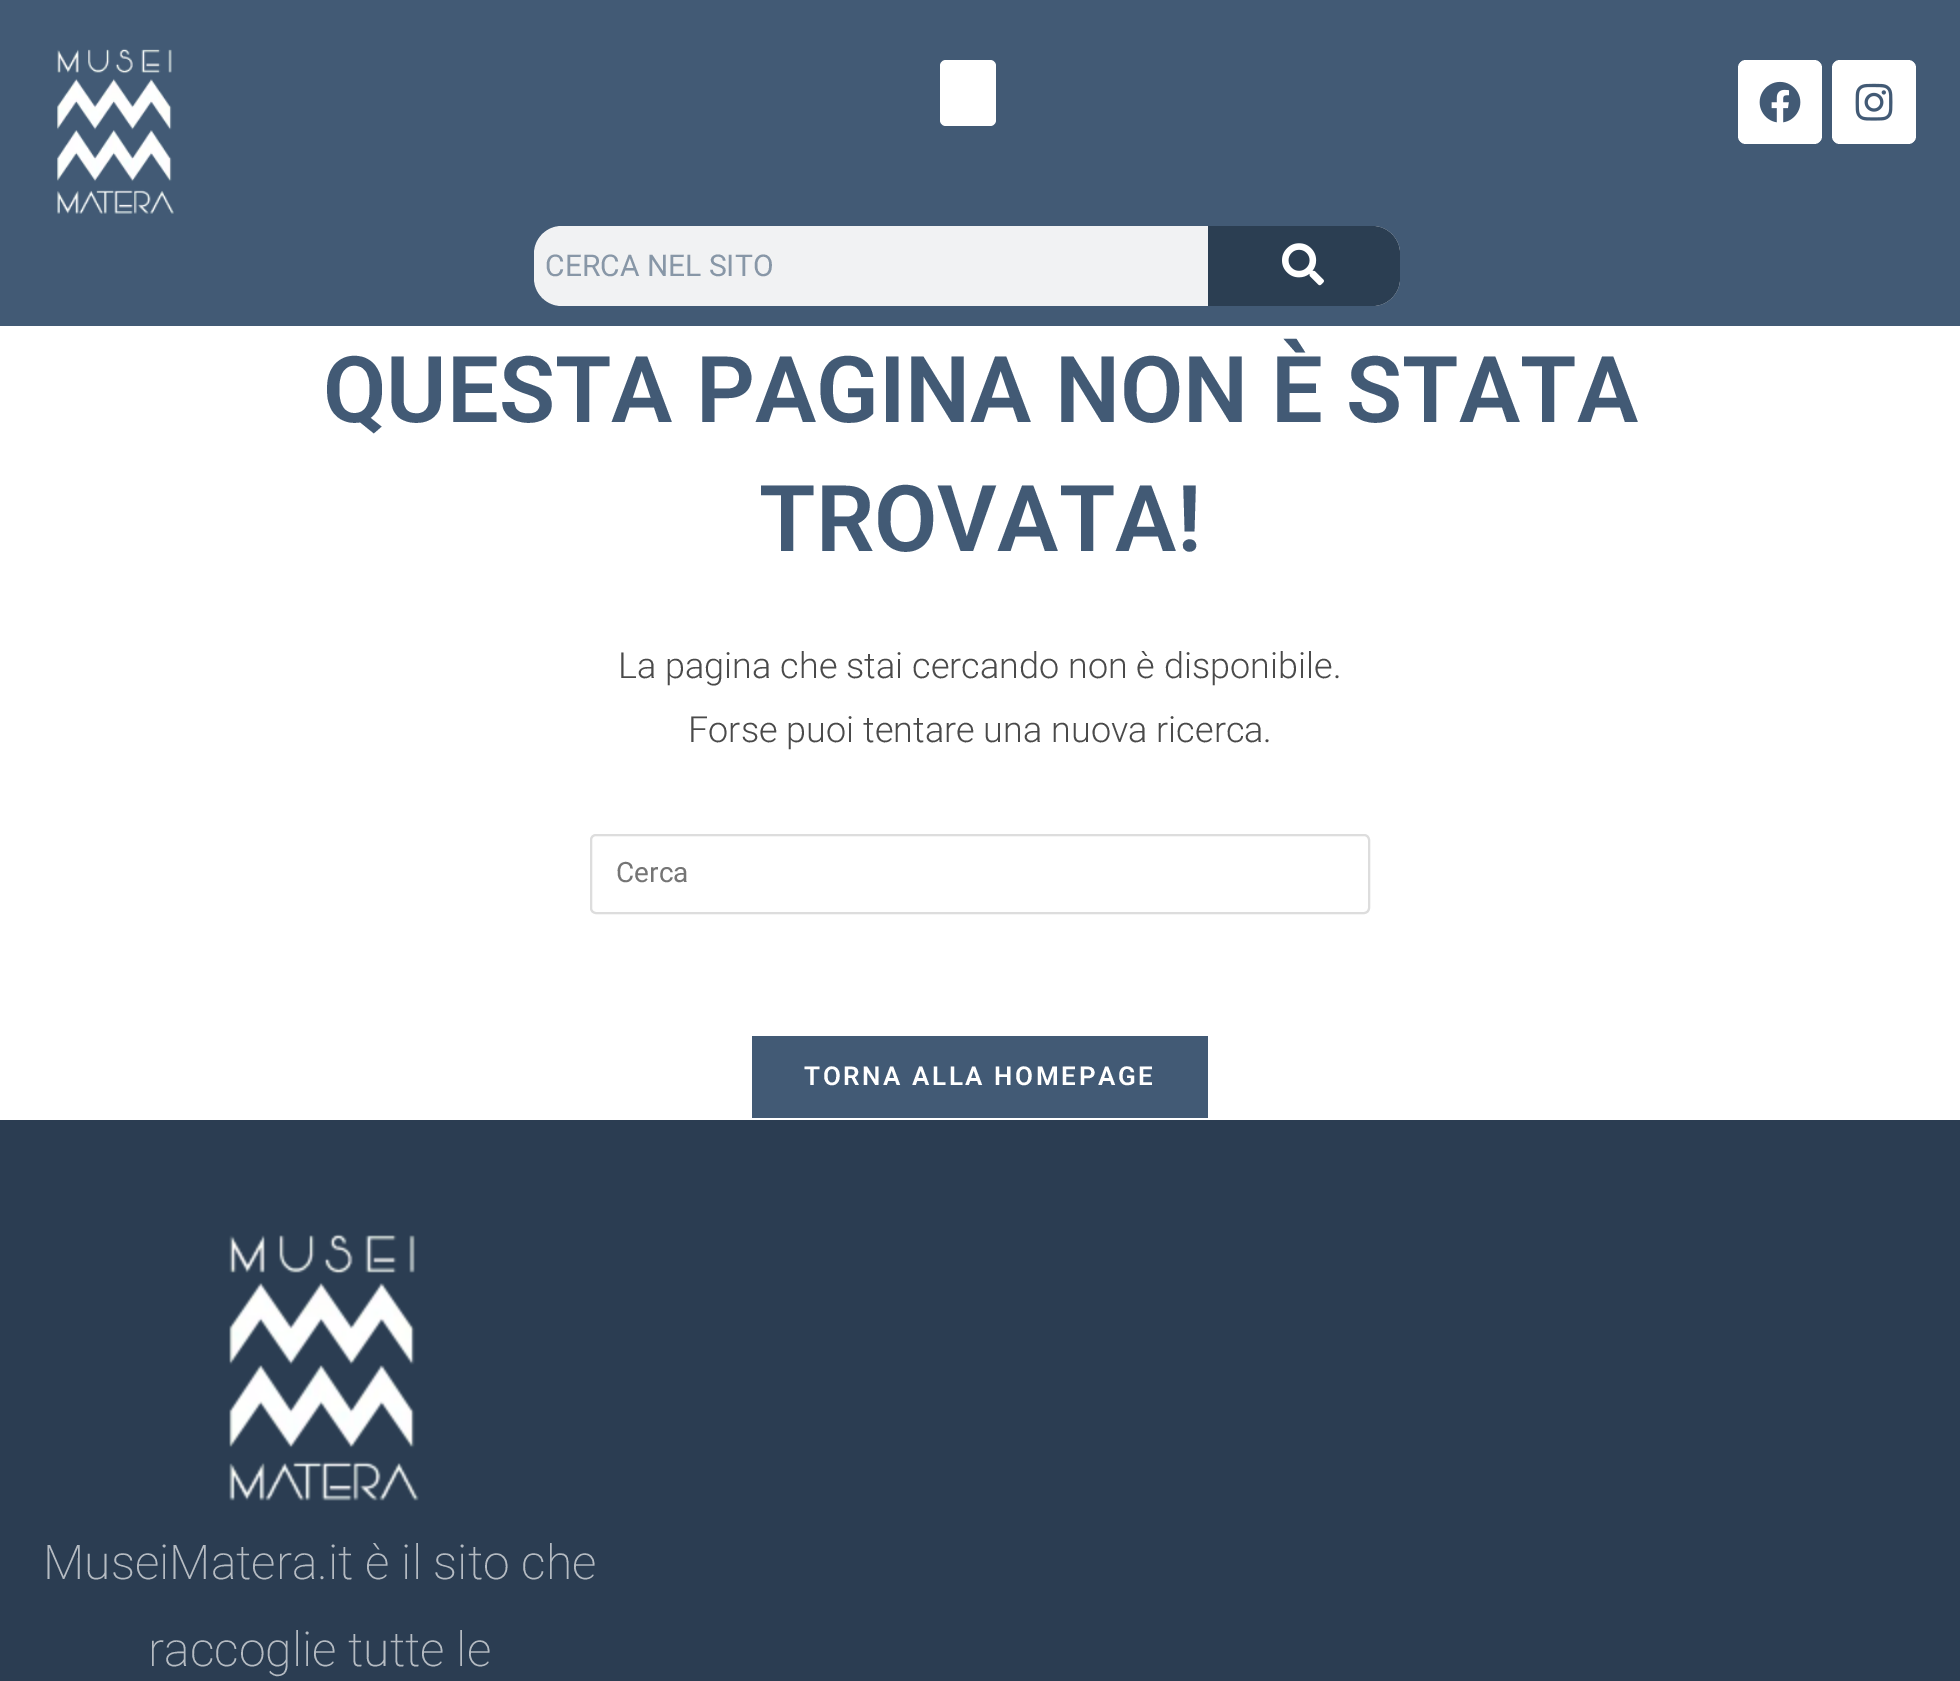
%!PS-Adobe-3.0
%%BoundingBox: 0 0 1960 1681
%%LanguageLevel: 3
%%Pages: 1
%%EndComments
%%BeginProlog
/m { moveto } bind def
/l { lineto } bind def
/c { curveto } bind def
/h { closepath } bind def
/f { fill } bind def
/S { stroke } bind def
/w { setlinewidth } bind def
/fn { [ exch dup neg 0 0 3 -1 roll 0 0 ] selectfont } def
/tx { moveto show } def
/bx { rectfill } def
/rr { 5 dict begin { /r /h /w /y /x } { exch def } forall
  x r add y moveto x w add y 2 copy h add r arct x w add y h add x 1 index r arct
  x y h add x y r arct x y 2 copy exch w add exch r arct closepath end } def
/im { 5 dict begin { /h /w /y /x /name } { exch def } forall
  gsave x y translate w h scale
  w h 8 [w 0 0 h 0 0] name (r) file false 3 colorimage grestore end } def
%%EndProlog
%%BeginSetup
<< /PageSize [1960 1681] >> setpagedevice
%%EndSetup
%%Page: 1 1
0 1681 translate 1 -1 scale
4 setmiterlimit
1 setgray
0 0 1960 1681 bx
0.259 0.353 0.459 setrgbcolor
0 0 1960 326 bx
(image0.raw) 57 48 117 166 im
1 setgray
1738 60 84 84 8 rr f
(image1.raw) 1759 81 42 42 im
1832 60 84 84 8 rr f
(image2.raw) 1855 83 38 38 im
940 60 56 66 6 rr f
0.945 0.949 0.953 setrgbcolor
534 226 866 80 28 rr f
/Roboto-Regular 30 fn
0.533 0.592 0.655 setrgbcolor
(CERCA NEL SITO) 545 276 tx
0.169 0.243 0.322 setrgbcolor
1208 226 m 1372 226 l 1387.5 226 1400 238.5 1400 254 c 1400 278 l 1400 293.5 1387.5 306 1372 306 c 1208 306 l h f
(image3.raw) 1282 243 42 43 im
/Roboto-SemiBold 92 fn
0.259 0.353 0.459 setrgbcolor
(QUESTA PAGINA NON È STATA) 323 422 tx
(TROVATA!) 759 551 tx
/Roboto-Light 36 fn
0.29 setgray
(La pagina che stai cercando non è disponibile.) 618 678 tx
(Forse puoi tentare una nuova ricerca.) 688 742 tx
0.867 setgray
2 w
591 835 778 78 5 rr S
/Roboto-Regular 28 fn
0.459 setgray
(Cerca) 616 882 tx
0.259 0.353 0.459 setrgbcolor
752 1036 456 82 bx
/Roboto-SemiBold 26 fn
1 setgray
804 1085 m 2.6 0 (TORNA ALLA HOMEPAGE) ashow
0.169 0.239 0.322 setrgbcolor
0 1120 1960 561 bx
(image4.raw) 229 1234 190 267 im
/Roboto-ExtraLight 48 fn
0.71 0.733 0.761 setrgbcolor
(MuseiMatera.it è il sito che) 43 1579 tx
(raccoglie tutte le) 148 1666 tx
showpage
%%EOF
